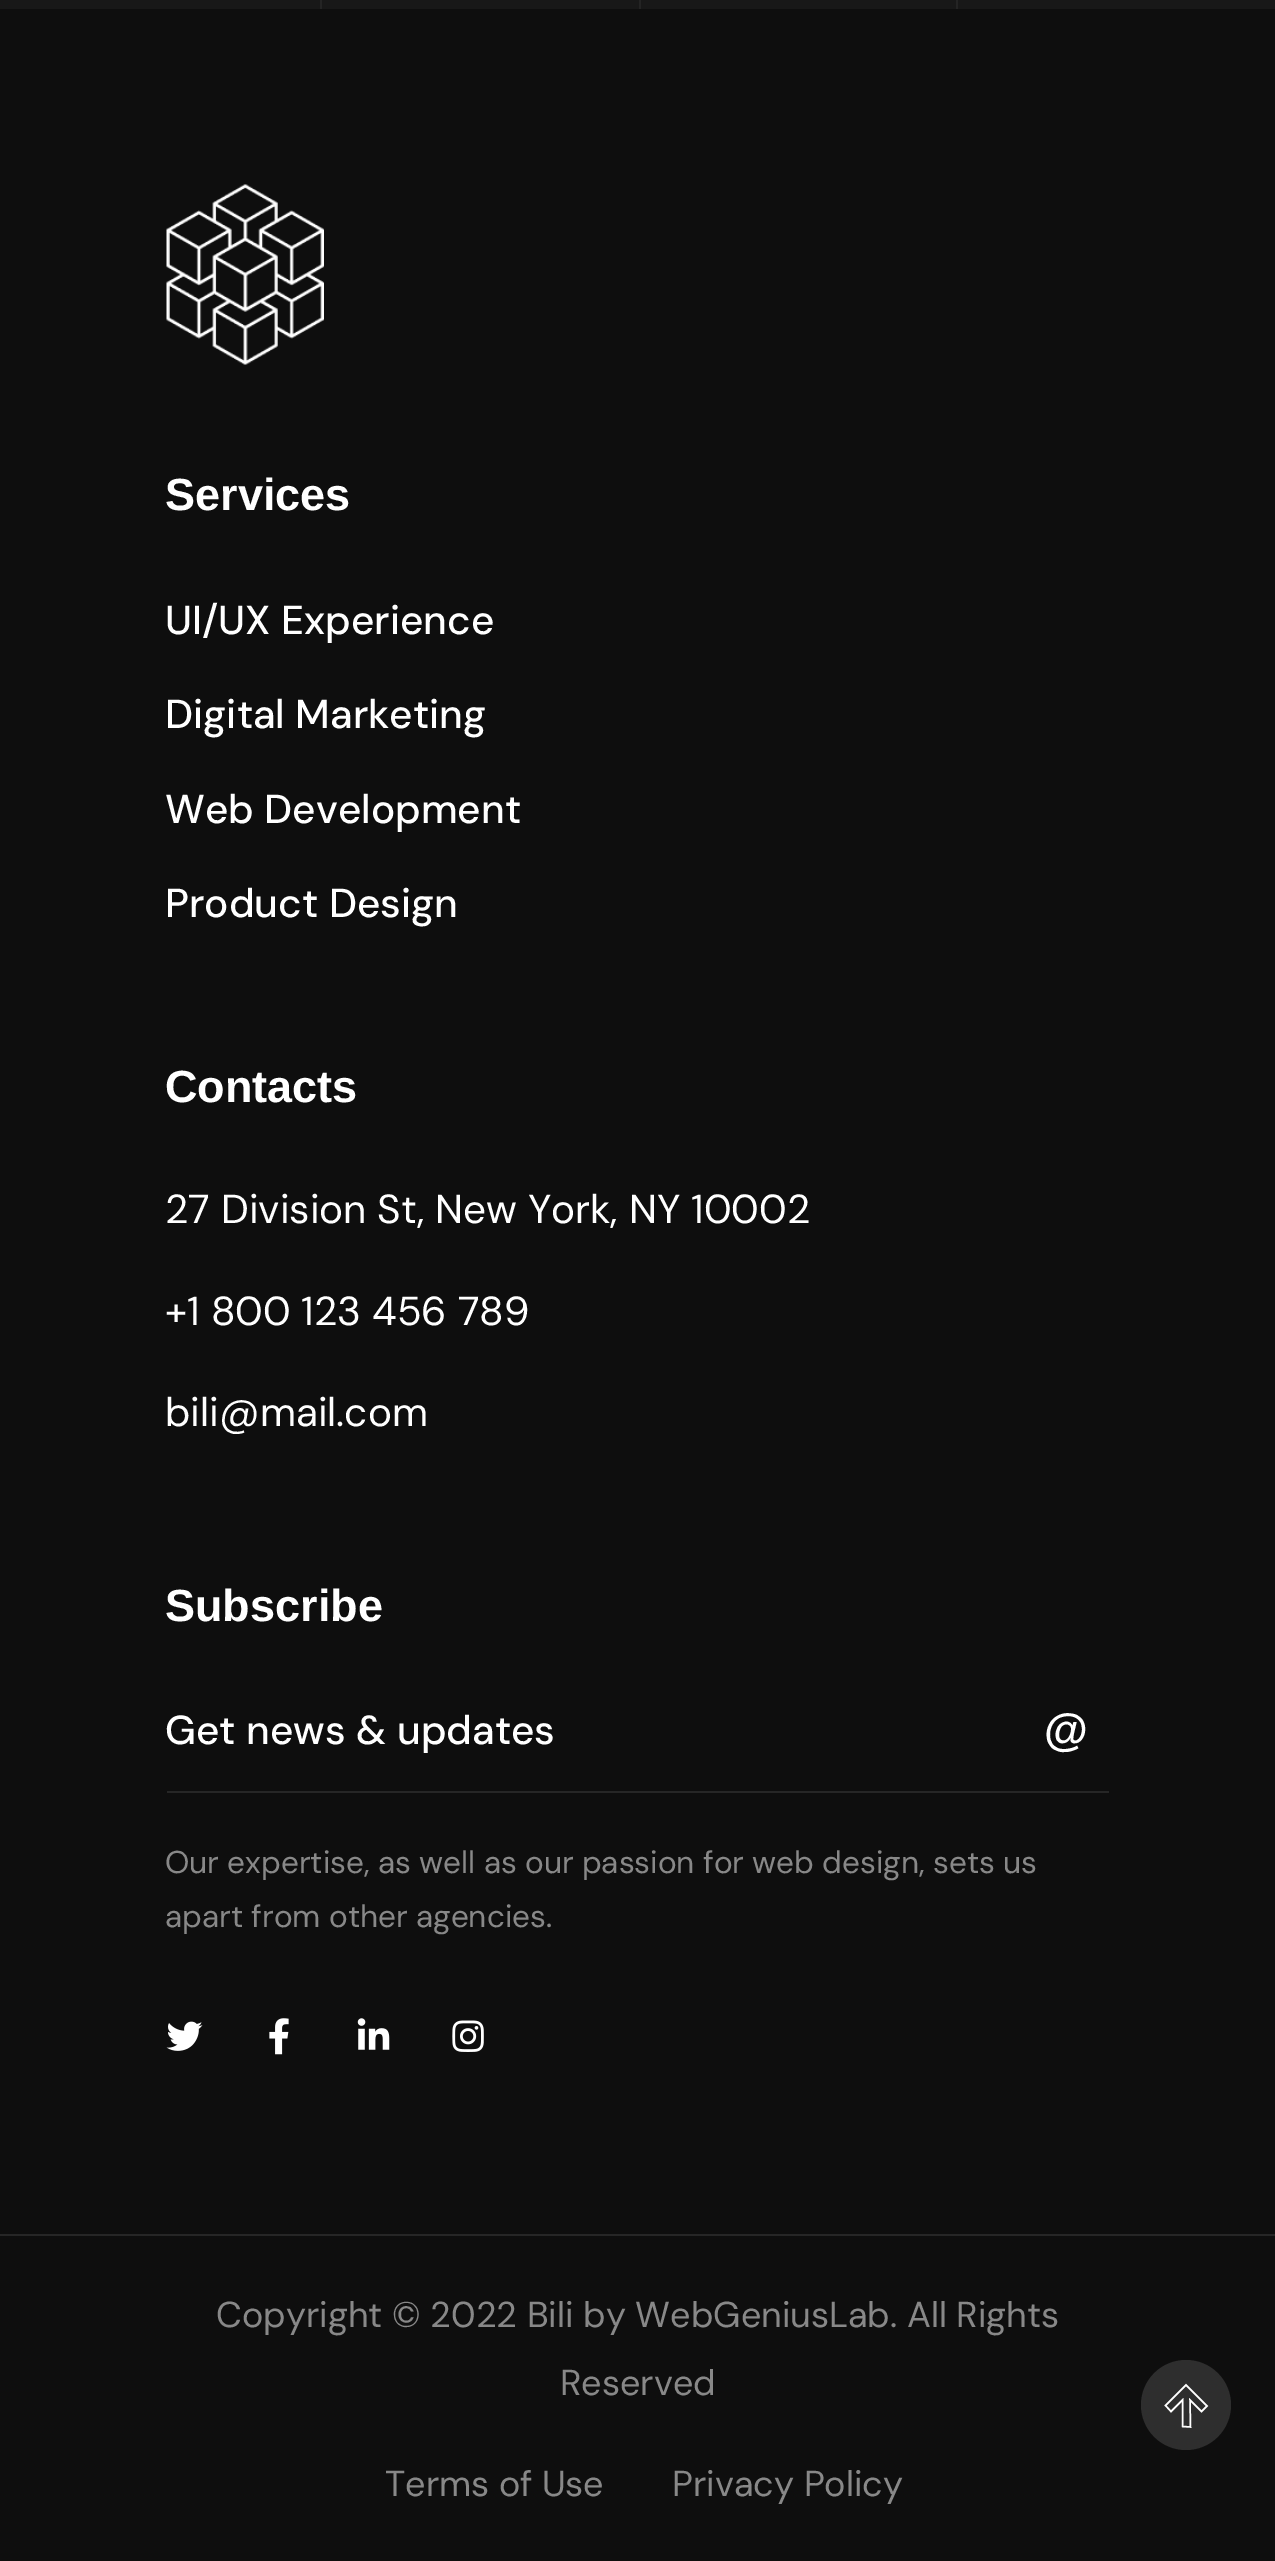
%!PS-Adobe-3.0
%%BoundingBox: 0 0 1275 2561
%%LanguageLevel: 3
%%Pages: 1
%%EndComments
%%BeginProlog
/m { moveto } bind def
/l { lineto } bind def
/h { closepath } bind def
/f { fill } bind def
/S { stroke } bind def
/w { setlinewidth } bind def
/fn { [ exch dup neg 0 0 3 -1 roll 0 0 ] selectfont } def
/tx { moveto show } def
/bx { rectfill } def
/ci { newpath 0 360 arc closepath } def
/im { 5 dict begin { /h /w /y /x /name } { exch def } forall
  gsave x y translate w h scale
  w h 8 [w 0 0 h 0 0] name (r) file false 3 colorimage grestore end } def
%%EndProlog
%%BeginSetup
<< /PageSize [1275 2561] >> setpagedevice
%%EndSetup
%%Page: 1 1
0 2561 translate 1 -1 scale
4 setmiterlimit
0.094 setgray
0 0 1275 2561 bx
0.141 setgray
320 0 2 9 bx
639 0 2 9 bx
956 0 2 9 bx
0.055 setgray
0 9 1275 2225 bx
(image0.raw) 166 184 158 181 im
/Arimo-Bold 45 fn
1 setgray
(Services) 165 510 tx
/DMSans-Medium 40.5 fn
(UI/UX Experience) 165 634 tx
(Digital Marketing) 165 728 tx
(Web Development) 165 823 tx
(Product Design) 165 917 tx
/Arimo-Bold 45 fn
(Contacts) 165 1102 tx
/DMSans-Regular 40.5 fn
(27 Division St, New York, NY 10002) 165 1223 tx
(+1 800 123 456 789) 165 1325 tx
(bili@mail.com) 165 1426 tx
/Arimo-Bold 45 fn
(Subscribe) 165 1621 tx
/DMSans-Medium 40.5 fn
(Get news & updates) 165 1744 tx
0.149 setgray
167 1791 942 2 bx
/Arimo-Bold 45 fn
1 setgray
1044 1745 m 4 0 (@) ashow
/DMSans-Regular 31.5 fn
0.533 setgray
(Our expertise, as well as our passion for web design, sets us) 165 1873 tx
(apart from other agencies.) 165 1927 tx
(image1.raw) 166 2021 37 30 im
(image2.raw) 269 2018 20 37 im
(image3.raw) 357 2018 33 32 im
(image4.raw) 452 2020 32 32 im
0.055 setgray
0 2236 1275 325 bx
0.149 setgray
0 2234 1275 2 bx
/DMSans-Regular 36 fn
0.533 setgray
(Copyright © 2022 Bili by WebGeniusLab. All Rights) 216 2327 tx
(Reserved) 560 2395 tx
(Terms of Use) 385 2496 tx
(Privacy Policy) 672 2496 tx
0.18 setgray
1186 2405 45 ci f
1 setgray
1.5 w
1190.5 2427 m 1182.5 2426.5 l 1182.5 2400 l 1171 2411.5 l 1165.5 2405.5 l 1186 2385 l 1207 2406 l 1201.5 2411.5 l 1190 2400 l h S
showpage
%%EOF
